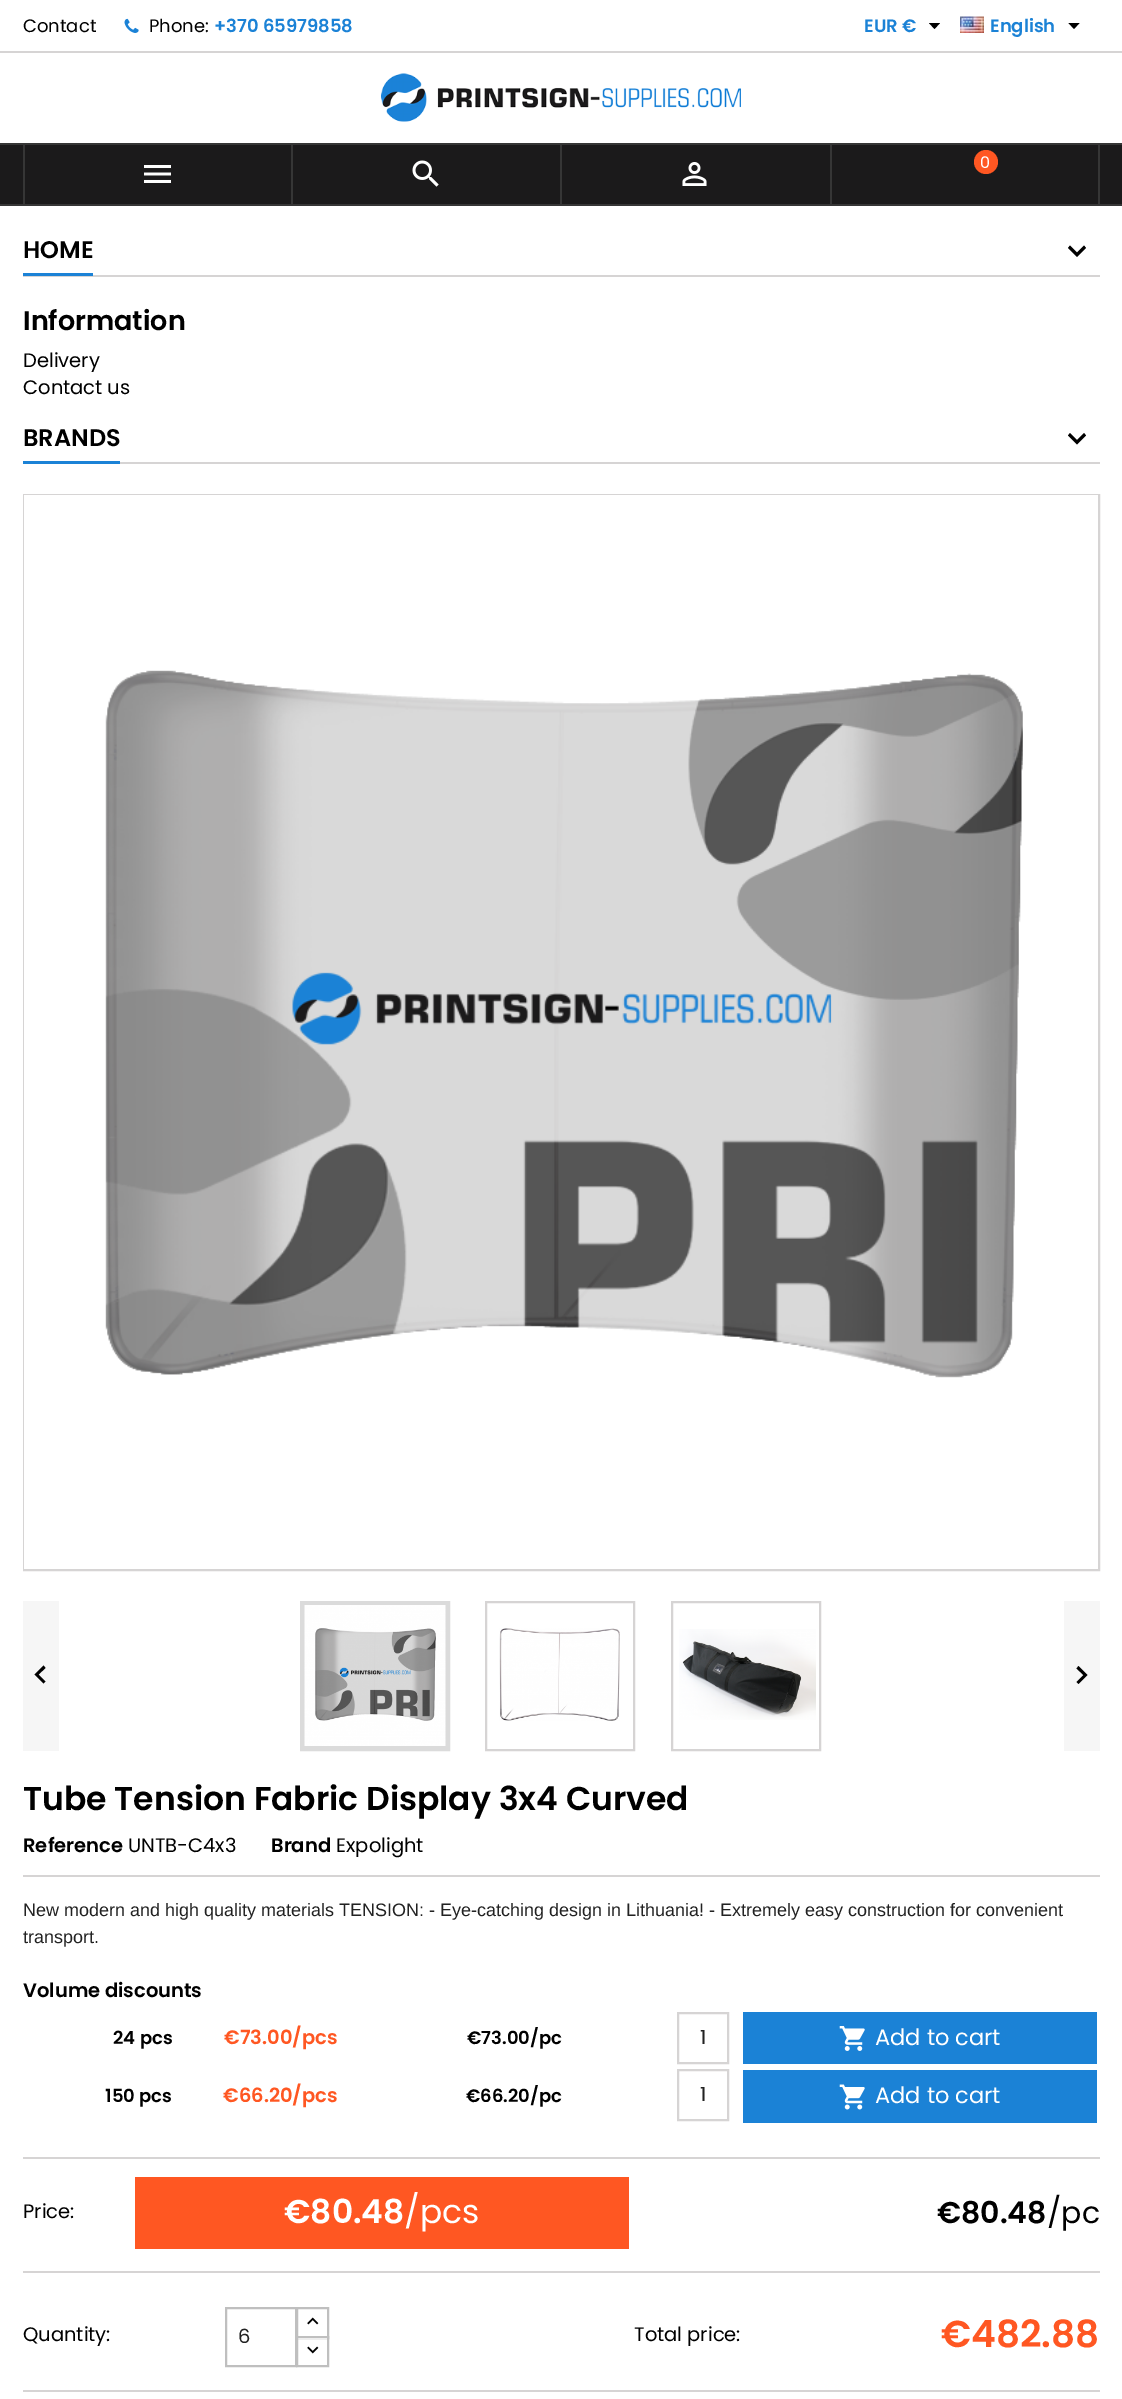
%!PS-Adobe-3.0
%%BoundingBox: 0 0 1122 2399
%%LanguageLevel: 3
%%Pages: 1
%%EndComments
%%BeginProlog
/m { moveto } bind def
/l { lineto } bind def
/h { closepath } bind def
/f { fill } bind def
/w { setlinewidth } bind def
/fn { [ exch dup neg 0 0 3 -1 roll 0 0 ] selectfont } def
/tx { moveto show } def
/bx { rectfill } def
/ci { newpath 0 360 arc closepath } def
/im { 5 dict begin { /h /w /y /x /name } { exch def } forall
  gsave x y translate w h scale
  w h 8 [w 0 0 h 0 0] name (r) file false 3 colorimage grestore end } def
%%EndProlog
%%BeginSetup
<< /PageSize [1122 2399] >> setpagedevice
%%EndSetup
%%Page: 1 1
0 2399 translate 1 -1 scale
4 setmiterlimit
1 setgray
0 0 1122 2399 bx
0.839 0.831 0.831 setrgbcolor
0 51 1122 2 bx
/Poppins-Regular 18 fn
0 setgray
(Contact) 23 32 tx
(image0.raw) 124 18 15 15 im
(Phone:) 149 32 tx
/Poppins-SemiBold 18 fn
0.106 0.51 0.839 setrgbcolor
(+370 65979858) 214 32 tx
(EUR €) 864 32 tx
0 setgray
929 23 m 940 23 l 934.5 29 l h f
(image1.raw) 960 16 24 17 im
0.106 0.51 0.839 setrgbcolor
(English) 990 32 tx
0 setgray
1068.5 23 m 1079.5 23 l 1074 29 l h f
(image2.raw) 381 73 360 49 im
0.106 0.102 0.106 setrgbcolor
0 145 1122 59 bx
0.212 setgray
0 143 1122 2 bx
0 204 1122 2 bx
291 144 2 60 bx
23 144 2 60 bx
(image3.raw) 144 165 27 18 im
560 144 2 60 bx
(image4.raw) 412 160 27 27 im
830 144 2 60 bx
(image5.raw) 682 162 25 24 im
1098 144 2 60 bx
1 0.341 0.133 setrgbcolor
986 162 12 ci f
/Poppins-Regular 16 fn
1 setgray
(0) 980 168 tx
0.839 0.831 0.831 setrgbcolor
23 275 1077 2 bx
0.106 0.51 0.839 setrgbcolor
23 273 70 3 bx
/Poppins-SemiBold 24 fn
0 setgray
(HOME) 23 258 tx
1070 245.5 m 1077 252.5 l 1084 245.5 l 1086 248 l 1077 257 l 1068 248 l h f
/Poppins-SemiBold 27 fn
(Information) 23 330 tx
/Poppins-Regular 19.5 fn
(Delivery) 23 367 tx
(Contact us) 23 394 tx
0.839 0.831 0.831 setrgbcolor
120 462 980 2 bx
0.106 0.51 0.839 setrgbcolor
23 461 97 3 bx
/Poppins-SemiBold 24 fn
0 setgray
(BRANDS) 23 446 tx
1070 433 m 1077 440 l 1084 433 l 1086 435.5 l 1077 444.5 l 1068 435.5 l h f
0.839 0.831 0.831 setrgbcolor
2 w
24 495 1075 1075 rectstroke
1 setgray
24 495 1074 1074 bx
(image6.raw) 105 670 918 708 im
0.859 setgray
5 w
302.5 1603.5 145 145 rectstroke
0.839 0.831 0.831 setrgbcolor
2 w
486 1602 148 148 rectstroke
672 1602 148 148 rectstroke
(image7.raw) 304 1605 142 141 im
(image8.raw) 499 1628 121 93 im
(image9.raw) 679 1629 137 91 im
0.965 setgray
23 1601 36 150 bx
0 setgray
45.5 1681.5 m 43.5 1683.5 l 34.5 1674.5 l 43.5 1665.5 l 45.5 1668 l 38.5 1674.5 l h f
0.965 setgray
1064 1601 36 150 bx
0 setgray
1076.5 1682 m 1083.5 1675 l 1076.5 1668.5 l 1078.5 1666 l 1087.5 1675 l 1078.5 1684 l h f
/Poppins-SemiBold 33 fn
(Tube Tension Fabric Display 3x4 Curved) 23 1810 tx
/Poppins-SemiBold 19.5 fn
(Reference) 23 1852 tx
/Poppins-Regular 19.5 fn
(UNTB-C4x3) 128 1852 tx
/Poppins-SemiBold 19.5 fn
(Brand) 271 1852 tx
/Poppins-Regular 19.5 fn
(Expolight) 336 1852 tx
0.839 0.831 0.831 setrgbcolor
23 1875 1077 2 bx
/LiberationSans-Regular 18 fn
0.133 setgray
(New modern and high quality materials TENSION: - Eye-catching design in Lithuania! - Extremely easy construction for convenient) 23 1916 tx
(transport.) 23 1943 tx
/Poppins-SemiBold 19.5 fn
0 setgray
(Volume discounts) 23 1997 tx
/Poppins-SemiBold 18 fn
(24 pcs) 113 2044 tx
/Poppins-SemiBold 19.5 fn
1 0.341 0.133 setrgbcolor
(€73.00/pcs) 224 2044 tx
/Poppins-SemiBold 18 fn
0 setgray
(€73.00/pc) 467 2044 tx
0.839 0.831 0.831 setrgbcolor
678 2013 50 50 rectstroke
/Poppins-Regular 19.5 fn
0.133 setgray
(1) 700 2044 tx
0.106 0.51 0.839 setrgbcolor
743 2012 354 52 bx
(image10.raw) 839 2026 26 25 im
/Poppins-Regular 22.5 fn
1 setgray
(Add to cart) 875 2045 tx
/Poppins-SemiBold 18 fn
0 setgray
(150 pcs) 105 2102 tx
/Poppins-SemiBold 19.5 fn
1 0.341 0.133 setrgbcolor
(€66.20/pcs) 223 2102 tx
/Poppins-SemiBold 18 fn
0 setgray
(€66.20/pc) 466 2102 tx
0.839 0.831 0.831 setrgbcolor
678 2070 50 50 rectstroke
/Poppins-Regular 19.5 fn
0.133 setgray
(1) 700 2101 tx
0.106 0.51 0.839 setrgbcolor
743 2070 354 53 bx
(image11.raw) 839 2084 26 26 im
/Poppins-Regular 22.5 fn
1 setgray
(Add to cart) 875 2103 tx
0.839 0.831 0.831 setrgbcolor
23 2157 1077 2 bx
23 2271 1077 2 bx
/Poppins-Regular 19.5 fn
0 setgray
(Price:) 23 2218 tx
1 0.341 0.133 setrgbcolor
135 2177 494 72 bx
/Poppins-SemiBold 33 fn
1 setgray
(€80.48) 284 2223 tx
/Poppins-Regular 33 fn
(/pcs) 404 2223 tx
/Poppins-SemiBold 30 fn
0 setgray
(€80.48) 937 2223 tx
/Poppins-Regular 30 fn
(/pc) 1047 2223 tx
0.839 0.831 0.831 setrgbcolor
23 2390 1077 2 bx
/Poppins-Regular 19.5 fn
0 setgray
(Quantity:) 23 2341 tx
0.749 setgray
297 2308 31 30 rectstroke
1 setgray
298 2338 29 1 bx
0.749 setgray
297 2337 31 29 rectstroke
226 2308 70 58 rectstroke
0.133 setgray
(6) 238 2343 tx
(image12.raw) 307 2317 12 8 im
(image13.raw) 307 2346 12 8 im
0 setgray
(Total price:) 634 2341 tx
/Poppins-SemiBold 37.5 fn
1 0.341 0.133 setrgbcolor
(€482.88) 941 2347 tx
showpage
%%EOF
